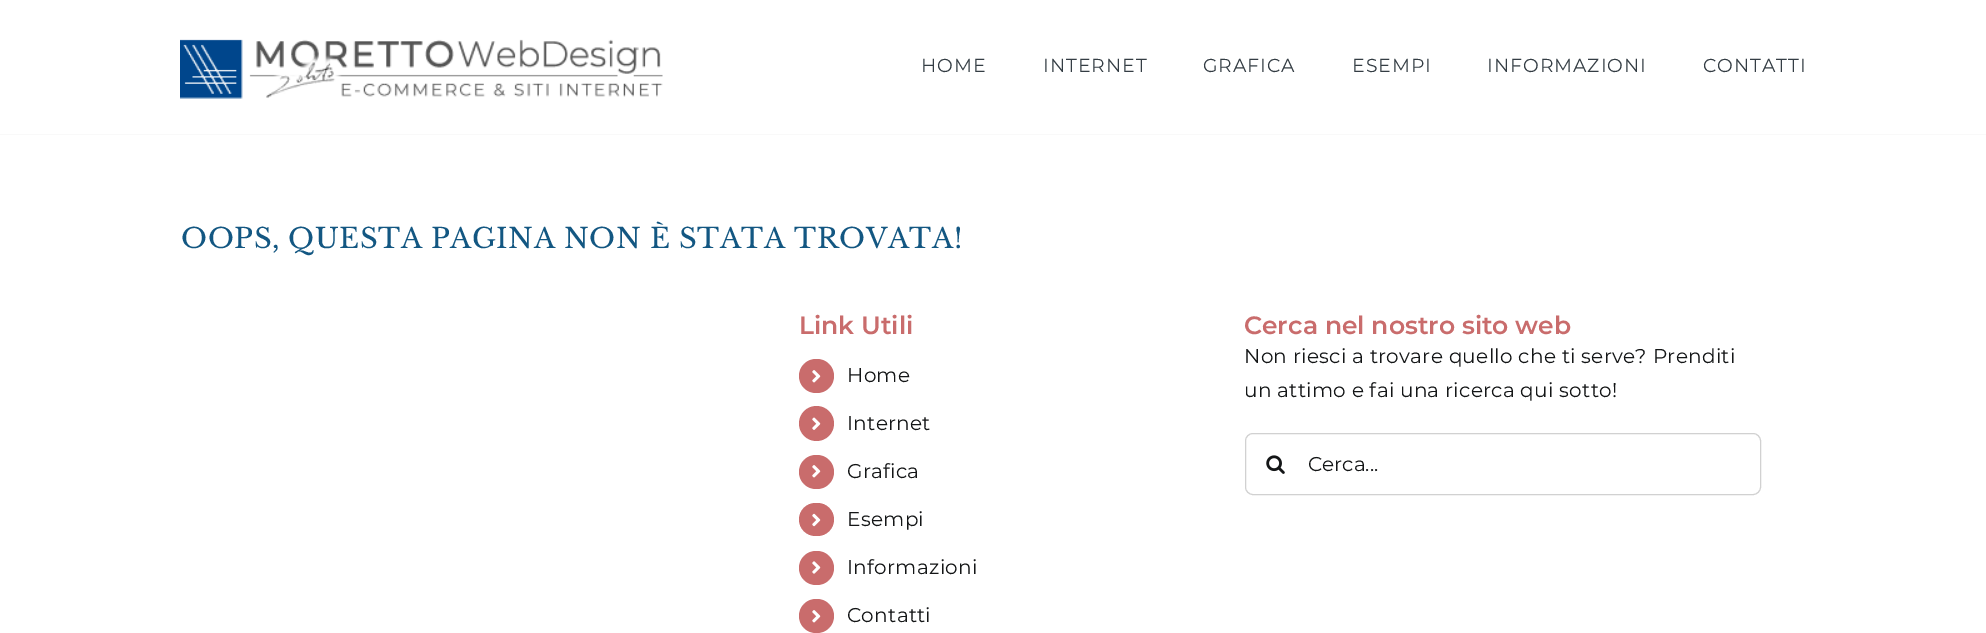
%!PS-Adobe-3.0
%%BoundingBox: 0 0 1986 633
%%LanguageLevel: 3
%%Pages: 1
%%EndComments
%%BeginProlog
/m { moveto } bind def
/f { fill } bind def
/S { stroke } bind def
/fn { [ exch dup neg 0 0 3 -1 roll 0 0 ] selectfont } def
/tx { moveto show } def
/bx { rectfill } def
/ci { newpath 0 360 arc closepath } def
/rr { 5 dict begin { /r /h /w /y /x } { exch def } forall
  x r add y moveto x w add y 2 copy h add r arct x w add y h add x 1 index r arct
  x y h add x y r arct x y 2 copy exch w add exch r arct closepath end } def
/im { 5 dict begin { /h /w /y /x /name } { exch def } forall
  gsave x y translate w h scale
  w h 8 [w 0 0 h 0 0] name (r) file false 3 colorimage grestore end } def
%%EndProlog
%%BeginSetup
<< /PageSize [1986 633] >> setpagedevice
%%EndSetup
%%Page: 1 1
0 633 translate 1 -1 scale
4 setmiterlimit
1 setgray
0 0 1986 633 bx
0.976 setgray
0 134 1986 1 bx
(image0.raw) 180 39 483 60 im
/Montserrat-Regular 18.75 fn
0.204 0.239 0.267 setrgbcolor
921 72 m 1 0 (HOME) ashow
1043 72 m 1 0 (INTERNET) ashow
1203 72 m 1 0 (GRAFICA) ashow
1352 72 m 1 0 (ESEMPI) ashow
1487 72 m 1 0 (INFORMAZIONI) ashow
1703 72 m 1 0 (CONTATTI) ashow
/LibreBaskerville-Regular 27.5 fn
0.075 0.341 0.51 setrgbcolor
181 248 m 0.55 0 (OOPS, QUESTA PAGINA NON È STATA TROVATA!) ashow
/Montserrat-SemiBold 25 fn
0.788 0.424 0.424 setrgbcolor
(Link Utili) 799 334 tx
799 359 35 34 17 rr f
(image1.raw) 812 370 9 13 im
/Montserrat-Regular 20 fn
0.078 0.086 0.09 setrgbcolor
847 382 m 0.3 0 (Home) ashow
0.788 0.424 0.424 setrgbcolor
816.5 423.5 17.5 ci f
(image2.raw) 812 417 9 13 im
0.078 0.086 0.09 setrgbcolor
847 430 m 0.3 0 (Internet) ashow
0.788 0.424 0.424 setrgbcolor
799 455 35 34 17 rr f
(image1.raw) 812 465 9 13 im
0.078 0.086 0.09 setrgbcolor
847 478 m 0.3 0 (Grafica) ashow
0.788 0.424 0.424 setrgbcolor
799 503 35 33 16.5 rr f
(image3.raw) 812 513 9 14 im
0.078 0.086 0.09 setrgbcolor
847 526 m 0.3 0 (Esempi) ashow
0.788 0.424 0.424 setrgbcolor
799 551 35 34 17 rr f
(image4.raw) 812 561 9 13 im
0.078 0.086 0.09 setrgbcolor
847 574 m 0.3 0 (Informazioni) ashow
0.788 0.424 0.424 setrgbcolor
799 599 35 34 17 rr f
(image1.raw) 812 610 9 13 im
0.078 0.086 0.09 setrgbcolor
847 622 m 0.3 0 (Contatti) ashow
/Montserrat-SemiBold 25 fn
0.788 0.424 0.424 setrgbcolor
(Cerca nel nostro sito web) 1244 334 tx
/Montserrat-Regular 20 fn
0.078 0.086 0.09 setrgbcolor
1244 363 m 0.3 0 (Non riesci a trovare quello che ti serve? Prenditi) ashow
1244 397 m 0.3 0 (un attimo e fai una ricerca qui sotto!) ashow
0.82 setgray
1245.5 433.5 515 61 7.5 rr S
(image5.raw) 1266 455 19 19 im
0.078 0.086 0.09 setrgbcolor
(Cerca...) 1308 471 tx
showpage
%%EOF
